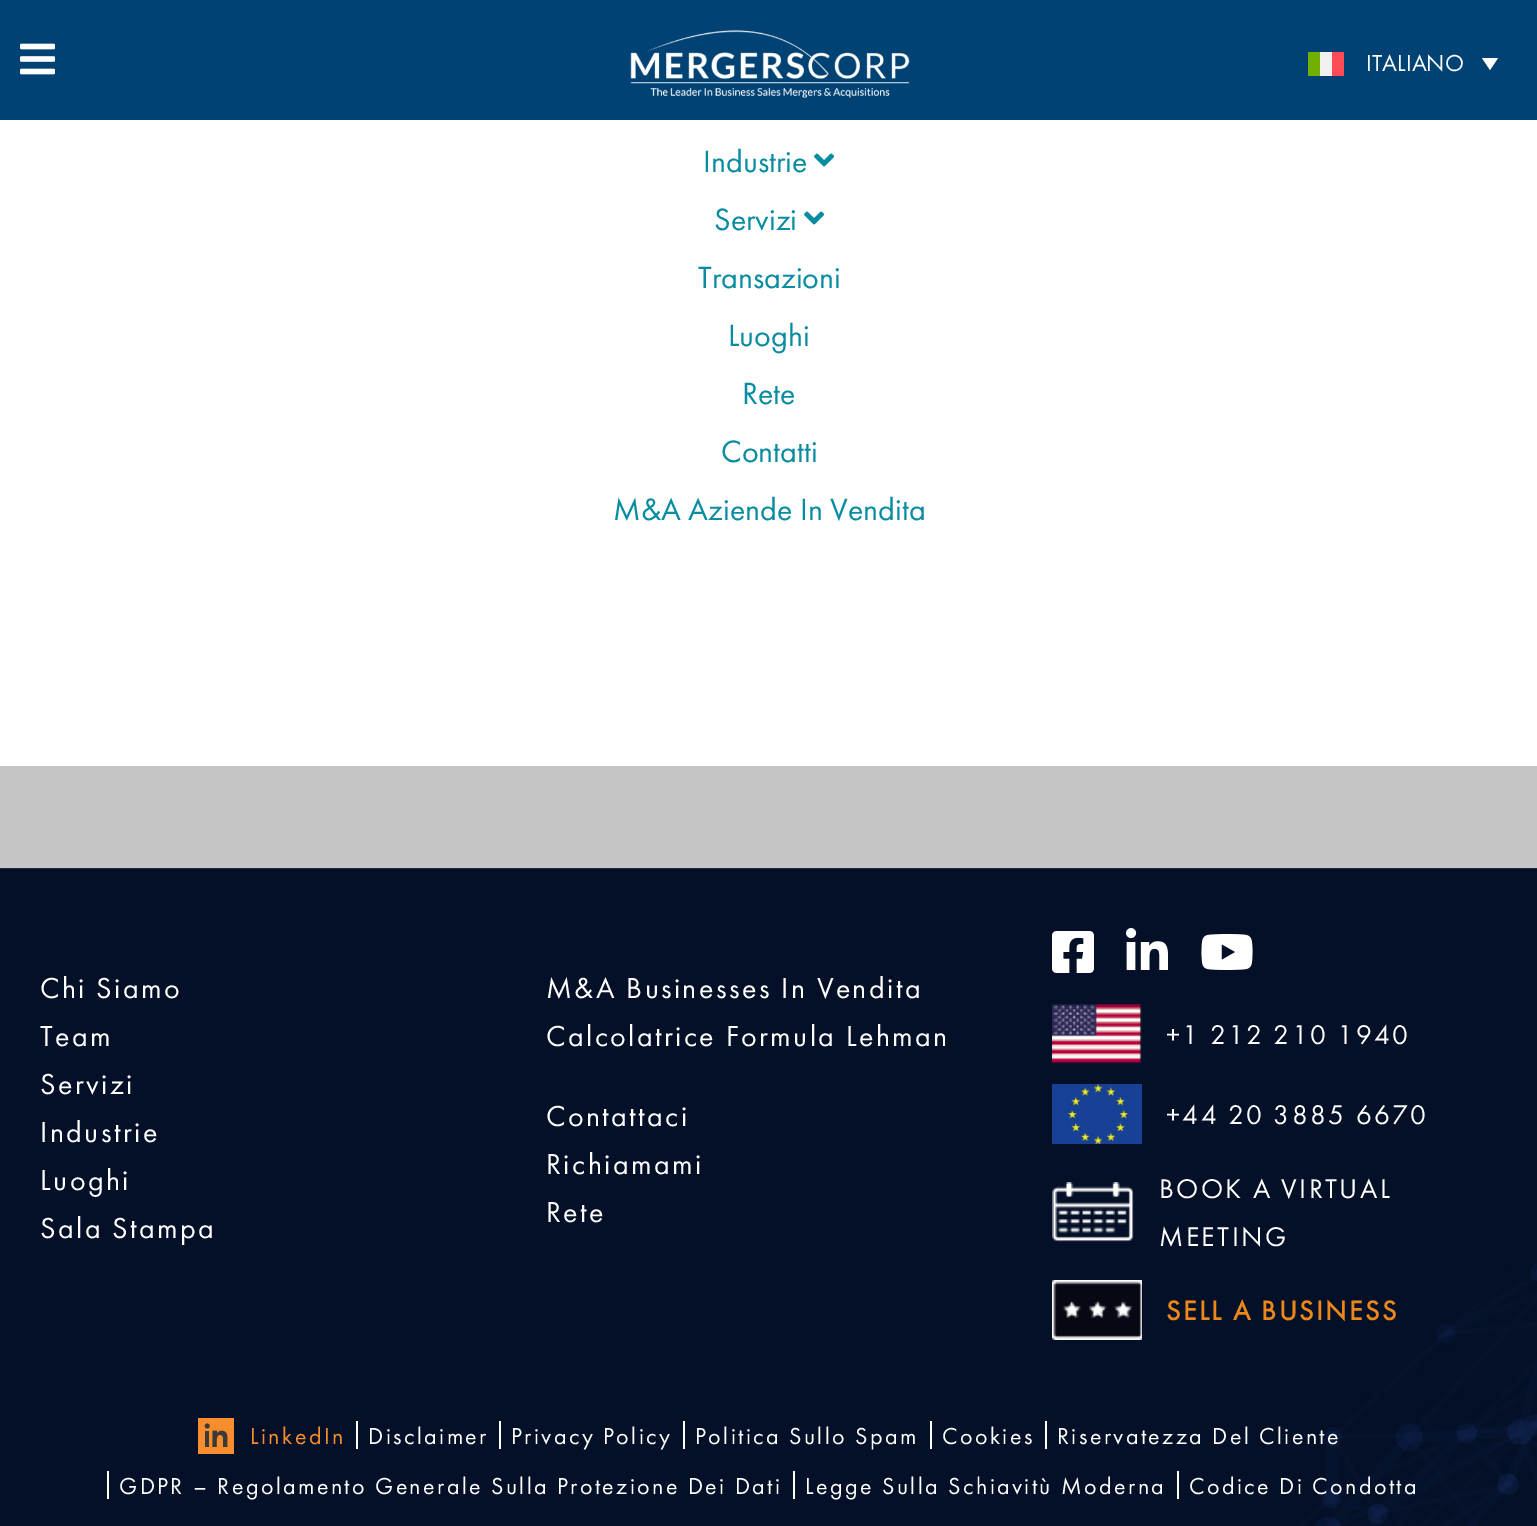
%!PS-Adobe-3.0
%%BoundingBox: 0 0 1537 1526
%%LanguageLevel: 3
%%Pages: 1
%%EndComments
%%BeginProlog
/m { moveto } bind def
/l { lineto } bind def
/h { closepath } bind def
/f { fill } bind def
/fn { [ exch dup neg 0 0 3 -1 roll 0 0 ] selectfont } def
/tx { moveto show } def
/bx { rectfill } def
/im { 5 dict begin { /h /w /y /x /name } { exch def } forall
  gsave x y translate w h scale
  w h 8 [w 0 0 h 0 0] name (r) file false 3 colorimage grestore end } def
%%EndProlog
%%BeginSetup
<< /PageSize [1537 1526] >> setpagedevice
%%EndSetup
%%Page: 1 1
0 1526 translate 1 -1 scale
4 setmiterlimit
1 setgray
0 0 1537 1526 bx
0 0.259 0.455 setrgbcolor
0 0 1537 120 bx
(image0.raw) 20 43 35 32 im
(image1.raw) 630 30 280 68 im
0.451 0.686 0 setrgbcolor
1308 52 12 24 bx
0.941 setgray
1320 52 12 24 bx
1 0.294 0.333 setrgbcolor
1332 52 12 24 bx
/FuturaPT-Regular 24 fn
1 setgray
(ITALIANO) 1366 71 tx
1482 58 m 1498 58 l 1490 70 l h f
/FuturaPT-Regular 32 fn
0.027 0.549 0.631 setrgbcolor
(Industrie) 703 172 tx
(image2.raw) 814 153 20 14 im
(Servizi) 714 230 tx
(image2.raw) 804 211 20 14 im
(Transazioni) 698 288 tx
(Luoghi) 728 346 tx
(Rete) 742 404 tx
(Contatti) 721 462 tx
(M&A Aziende In Vendita) 613 520 tx
0.773 setgray
0 766 1537 102 bx
(image3.raw) 0 868 1537 658 im
/FuturaPT-Regular 30 fn
1 setgray
40 998 m 2.4 0 (Chi Siamo) ashow
40 1046 m 2.4 0 (Team) ashow
40 1094 m 2.4 0 (Servizi) ashow
40 1142 m 2.4 0 (Industrie) ashow
40 1190 m 2.4 0 (Luoghi) ashow
40 1238 m 2.4 0 (Sala Stampa) ashow
546 998 m 2.4 0 (M&A Businesses In Vendita) ashow
546 1046 m 2.4 0 (Calcolatrice Formula Lehman) ashow
546 1126 m 2.4 0 (Contattaci) ashow
546 1174 m 2.4 0 (Richiamami) ashow
546 1222 m 2.4 0 (Rete) ashow
(image4.raw) 1052 931 42 42 im
(image5.raw) 1126 928 42 42 im
(image6.raw) 1201 934 52 36 im
(image7.raw) 1052 1004 90 60 im
/FuturaPT-Regular 28 fn
1166 1044 m 2.4 0 (+1 212 210 1940) ashow
(image8.raw) 1052 1084 90 60 im
1166 1124 m 2.4 0 (+44 20 3885 6670) ashow
(image9.raw) 1052 1182 82 60 im
1159 1198 m 2.4 0 (BOOK A VIRTUAL) ashow
1159 1246 m 2.4 0 (MEETING) ashow
(image10.raw) 1052 1280 90 60 im
/FuturaPT-Bold 28 fn
0.925 0.533 0.106 setrgbcolor
1166 1320 m 2.4 0 (SELL A BUSINESS) ashow
0.965 0.553 0.18 setrgbcolor
198 1418 36 36 bx
(image11.raw) 204 1423 24 24 im
/FuturaPT-Regular 24 fn
250 1444 m 2.4 0 (LinkedIn) ashow
/FuturaPT-Regular 28 fn
1 setgray
(|) 350 1442 tx
/FuturaPT-Regular 24 fn
368 1444 m 2.4 0 (Disclaimer) ashow
/FuturaPT-Regular 28 fn
(|) 493 1442 tx
/FuturaPT-Regular 24 fn
511 1444 m 2.4 0 (Privacy Policy) ashow
/FuturaPT-Regular 28 fn
(|) 677 1442 tx
/FuturaPT-Regular 24 fn
695 1444 m 2.4 0 (Politica Sullo Spam) ashow
/FuturaPT-Regular 28 fn
(|) 924 1442 tx
/FuturaPT-Regular 24 fn
942 1444 m 2.4 0 (Cookies) ashow
/FuturaPT-Regular 28 fn
(|) 1039 1442 tx
/FuturaPT-Regular 24 fn
1057 1444 m 2.4 0 (Riservatezza Del Cliente) ashow
/FuturaPT-Regular 28 fn
(|) 101 1492 tx
/FuturaPT-Regular 24 fn
119 1494 m 2.4 0 (GDPR – Regolamento Generale Sulla Protezione Dei Dati) ashow
/FuturaPT-Regular 28 fn
(|) 787 1492 tx
/FuturaPT-Regular 24 fn
805 1494 m 2.4 0 (Legge Sulla Schiavitù Moderna) ashow
/FuturaPT-Regular 28 fn
(|) 1171 1492 tx
/FuturaPT-Regular 24 fn
1189 1494 m 2.4 0 (Codice Di Condotta) ashow
showpage
%%EOF
